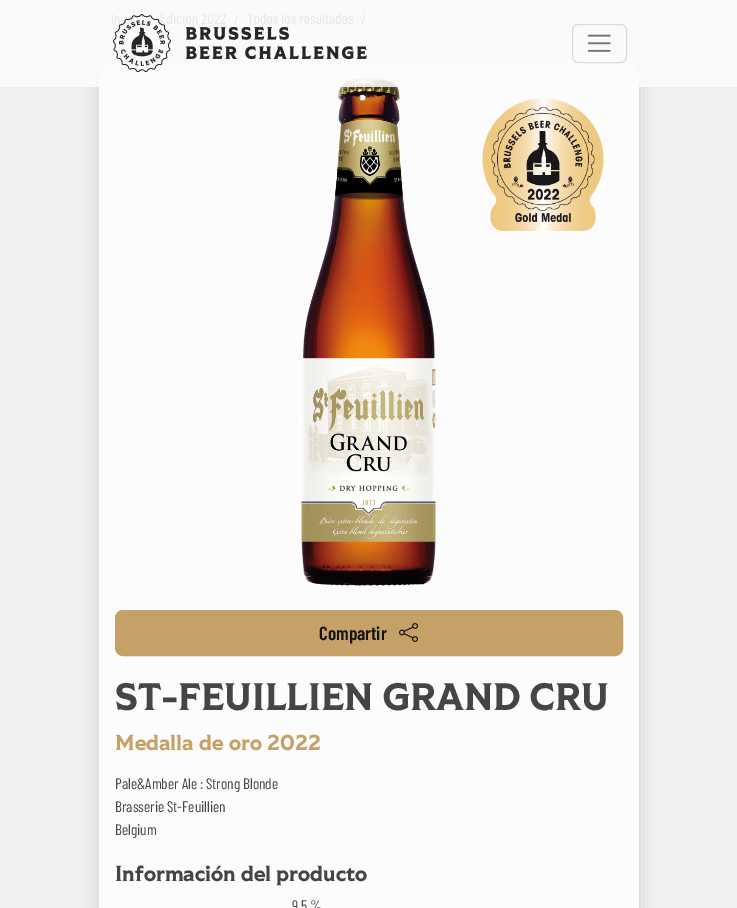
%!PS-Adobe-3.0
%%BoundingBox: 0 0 737 908
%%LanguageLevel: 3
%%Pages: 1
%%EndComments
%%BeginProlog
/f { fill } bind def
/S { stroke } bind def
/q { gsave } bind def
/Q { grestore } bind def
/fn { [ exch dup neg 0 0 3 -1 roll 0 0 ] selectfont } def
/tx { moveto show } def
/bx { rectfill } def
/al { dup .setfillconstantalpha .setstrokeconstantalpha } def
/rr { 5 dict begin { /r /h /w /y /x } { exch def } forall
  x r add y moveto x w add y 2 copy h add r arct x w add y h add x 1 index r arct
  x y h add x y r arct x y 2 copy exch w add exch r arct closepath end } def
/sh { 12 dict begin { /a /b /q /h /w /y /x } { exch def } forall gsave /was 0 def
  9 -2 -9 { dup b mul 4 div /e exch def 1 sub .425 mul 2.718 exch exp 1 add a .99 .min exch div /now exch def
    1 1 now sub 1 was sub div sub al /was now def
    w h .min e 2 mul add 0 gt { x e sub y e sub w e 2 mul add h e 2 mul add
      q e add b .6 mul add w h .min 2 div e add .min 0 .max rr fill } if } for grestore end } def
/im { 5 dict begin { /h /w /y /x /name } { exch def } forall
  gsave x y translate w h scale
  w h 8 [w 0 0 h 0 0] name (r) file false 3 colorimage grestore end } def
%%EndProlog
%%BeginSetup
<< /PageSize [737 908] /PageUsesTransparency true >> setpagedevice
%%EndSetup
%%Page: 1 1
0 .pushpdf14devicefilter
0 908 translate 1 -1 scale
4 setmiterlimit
0.941 setgray
0 0 737 908 bx
0.078 setgray
99 70 540 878 16 8 0.15 sh
0.988 setgray
99 62 540 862 16 rr f
(image2.raw) 301 78 135 508 im
0.85 al
0 0 737 87 bx
1 al
(image0.raw) 112 14 255 59 im
0.15 al
0.149 setgray
572.5 24.5 54 38 5.5 rr S
1 al
(image1.raw) 587 34 24 18 im
(image3.raw) 482 98 122 133 im
0.773 0.631 0.404 setrgbcolor
115.5 610.5 507 45 7.5 rr q f Q
S
/BarlowCondensed-SemiBold 19 fn
0.078 setgray
(Compartir) 319 640 tx
(image4.raw) 399 623 19 19 im
/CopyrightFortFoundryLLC-Bold 38.25 fn
0.271 setgray
(ST-FEUILLIEN GRAND CRU) 115 710 tx
/CopyrightFortFoundryLLC-Bold 21.75 fn
0.773 0.631 0.404 setrgbcolor
(Medalla de oro 2022) 115 750 tx
/BarlowCondensed-Regular 15.25 fn
0.271 setgray
(Pale&Amber Ale : Strong Blonde) 115 789 tx
(Brasserie St-Feuillien) 115 812 tx
(Belgium) 115 835 tx
/CopyrightFortFoundryLLC-Bold 21.75 fn
(Información del producto) 115 881 tx
/BarlowCondensed-Regular 15.25 fn
(9.5 %) 292 911 tx
.poppdf14devicefilter showpage
%%EOF
